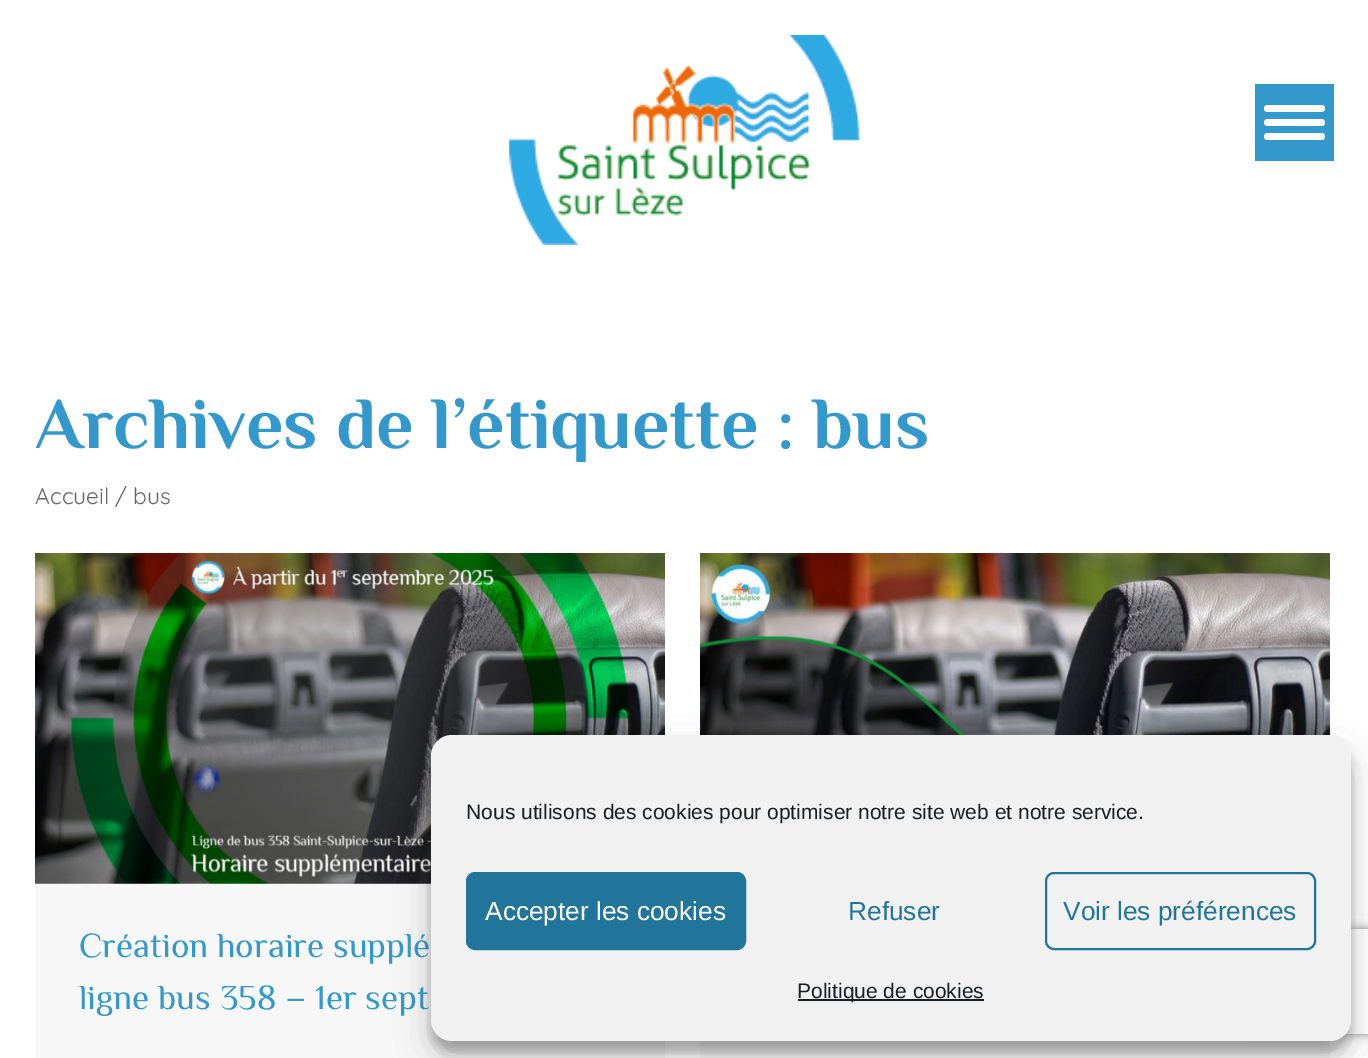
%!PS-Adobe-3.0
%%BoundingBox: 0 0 1368 1058
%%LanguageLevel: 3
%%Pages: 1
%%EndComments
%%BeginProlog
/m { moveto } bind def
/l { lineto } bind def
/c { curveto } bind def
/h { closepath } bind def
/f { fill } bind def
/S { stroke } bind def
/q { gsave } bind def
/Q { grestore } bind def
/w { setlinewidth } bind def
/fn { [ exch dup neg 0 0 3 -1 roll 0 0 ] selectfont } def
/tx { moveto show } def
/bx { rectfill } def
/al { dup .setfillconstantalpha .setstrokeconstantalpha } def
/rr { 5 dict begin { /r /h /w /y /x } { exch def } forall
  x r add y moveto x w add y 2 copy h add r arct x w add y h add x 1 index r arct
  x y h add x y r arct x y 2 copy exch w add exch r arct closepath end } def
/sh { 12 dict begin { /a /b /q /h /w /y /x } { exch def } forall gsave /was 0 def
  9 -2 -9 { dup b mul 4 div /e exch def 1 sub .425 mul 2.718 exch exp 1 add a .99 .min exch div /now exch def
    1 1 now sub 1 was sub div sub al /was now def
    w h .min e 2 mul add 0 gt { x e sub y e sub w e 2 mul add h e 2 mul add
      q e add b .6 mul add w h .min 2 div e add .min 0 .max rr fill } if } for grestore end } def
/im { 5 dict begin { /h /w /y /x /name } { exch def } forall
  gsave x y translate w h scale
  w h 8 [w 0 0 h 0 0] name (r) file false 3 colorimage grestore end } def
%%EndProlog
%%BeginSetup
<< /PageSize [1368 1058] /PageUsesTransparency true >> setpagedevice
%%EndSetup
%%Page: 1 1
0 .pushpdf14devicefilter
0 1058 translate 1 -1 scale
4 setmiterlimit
1 setgray
0 0 1368 1058 bx
(image0.raw) 509 35 351 210 im
0.2 0.6 0.8 setrgbcolor
1255 84 79 77 bx
1 setgray
1264 105 61 7 3.5 rr f
1264 119 61 7 3.5 rr f
1264 133 61 7 3.5 rr f
/Philosopher-Bold 73.5 fn
0.2 0.6 0.8 setrgbcolor
(Archives de l’étiquette : bus) 35 448 tx
/Quicksand-Regular 22.75 fn
0.4 setgray
(Accueil / bus) 35 504 tx
0.969 setgray
35 883 630 175 bx
(image1.raw) 35 553 630 331 im
/Philosopher-Regular 35 fn
0.2 0.6 0.8 setrgbcolor
(Création horaire supplé) 79 957 tx
(ligne bus 358 – 1er sept) 79 1009 tx
0.969 setgray
700 1041 630 17 bx
(image2.raw) 700 553 630 182 im
0 setgray
431 746 920 306 21 5 0.23 sh
431 753 920 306 21 17.5 0.19 sh
q
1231 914 m 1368 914 l 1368 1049 l 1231 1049 l h 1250 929 m 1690 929 l 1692 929 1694 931 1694 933 c 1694 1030 l 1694 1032 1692 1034 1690 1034 c 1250 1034 l 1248 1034 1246 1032 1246 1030 c 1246 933 l 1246 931 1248 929 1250 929 c h eoclip newpath
0.502 setgray
1246 929 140 105 4 4.5 1 sh
Q
0.945 setgray
431 735 920 306 21 rr f
/LiberationSans-Regular 21 fn
0.098 0.118 0.137 setrgbcolor
(Nous utilisons des cookies pour optimiser notre site web et notre service.) 466 819 tx
0.129 0.459 0.608 setrgbcolor
467 873 278 76 8 rr q f Q
2 w
S
/LiberationSans-Regular 26.25 fn
1 setgray
(Accepter les cookies) 485 920 tx
0.129 0.459 0.608 setrgbcolor
(Refuser) 848 920 tx
1046 873 269 76 8 rr S
(Voir les préférences) 1063 920 tx
0.098 0.118 0.137 setrgbcolor
798 999 186 2 bx
/LiberationSans-Regular 21 fn
(Politique de cookies) 797 998 tx
.poppdf14devicefilter showpage
%%EOF
